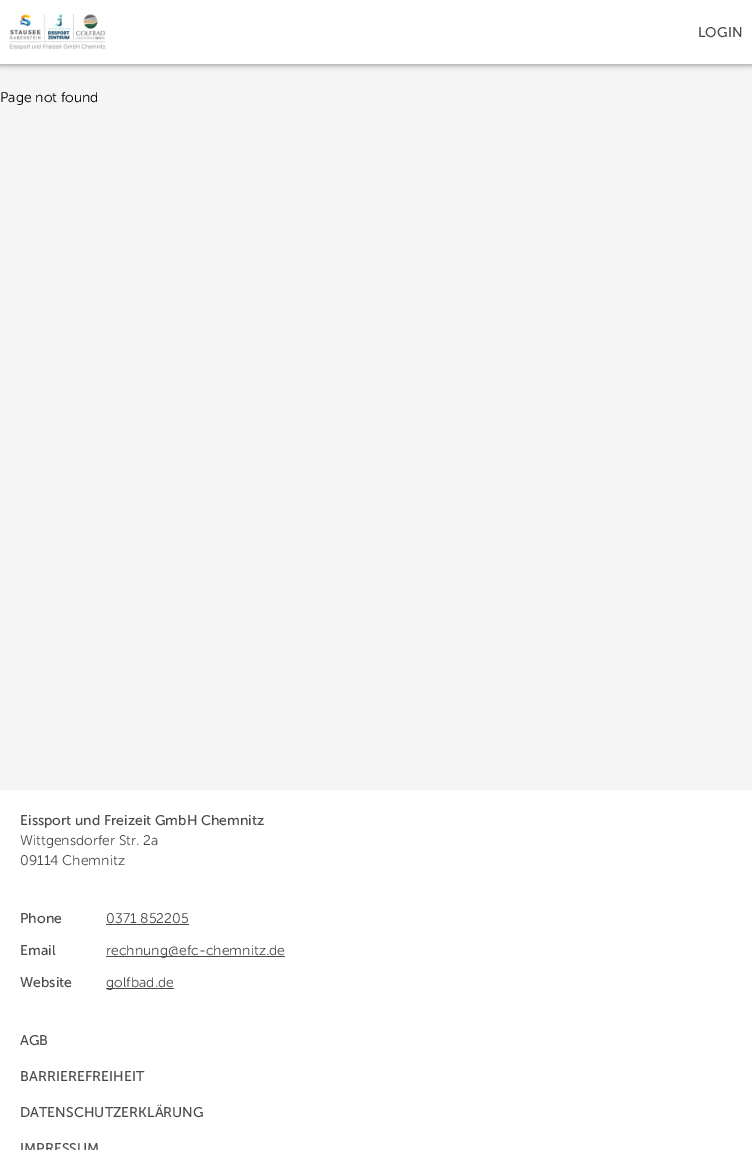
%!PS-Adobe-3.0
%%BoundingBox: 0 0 752 1150
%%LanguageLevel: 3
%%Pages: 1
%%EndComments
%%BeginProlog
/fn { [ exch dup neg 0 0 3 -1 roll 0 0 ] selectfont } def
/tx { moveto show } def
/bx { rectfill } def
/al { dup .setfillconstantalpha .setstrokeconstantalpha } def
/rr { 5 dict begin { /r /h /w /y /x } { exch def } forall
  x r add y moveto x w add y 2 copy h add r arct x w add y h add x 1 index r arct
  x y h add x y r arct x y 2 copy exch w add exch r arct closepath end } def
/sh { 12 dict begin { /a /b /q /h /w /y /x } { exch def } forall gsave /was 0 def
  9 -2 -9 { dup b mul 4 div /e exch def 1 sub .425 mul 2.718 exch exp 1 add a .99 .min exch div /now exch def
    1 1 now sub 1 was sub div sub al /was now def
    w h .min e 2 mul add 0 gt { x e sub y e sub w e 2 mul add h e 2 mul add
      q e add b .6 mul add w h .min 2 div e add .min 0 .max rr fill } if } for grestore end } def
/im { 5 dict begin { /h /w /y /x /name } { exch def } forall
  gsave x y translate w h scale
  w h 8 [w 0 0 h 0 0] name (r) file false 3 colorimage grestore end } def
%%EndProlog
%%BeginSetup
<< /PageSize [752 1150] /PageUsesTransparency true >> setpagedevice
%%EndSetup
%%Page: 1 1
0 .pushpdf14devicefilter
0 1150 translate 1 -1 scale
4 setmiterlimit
0.961 setgray
0 0 752 1150 bx
0 setgray
0 2 752 64 0 2.5 0.3 sh
1 setgray
0 0 752 64 bx
(image0.raw) 9 13 97 37 im
/MuseoSans-Regular 14 fn
0.29 setgray
(LOGIN) 698 37 tx
/MuseoSans-Light 14 fn
0 setgray
(Page not found) 0 102 tx
1 setgray
0 790 752 360 bx
/MuseoSans-Regular 14 fn
0.29 setgray
(Eissport und Freizeit GmbH Chemnitz) 20 825 tx
/MuseoSans-Light 14 fn
(Wittgensdorfer Str. 2a) 20 845 tx
(09114 Chemnitz) 20 865 tx
/MuseoSans-Regular 14 fn
(Phone) 20 923 tx
/MuseoSans-Light 14 fn
(0371 852205) 106 923 tx
106 924 83 1 bx
/MuseoSans-Regular 14 fn
(Email) 20 955 tx
106 956 179 1 bx
/MuseoSans-Light 14 fn
(rechnung@efc-chemnitz.de) 106 955 tx
/MuseoSans-Regular 14 fn
(Website) 20 987 tx
106 988 68 1 bx
/MuseoSans-Light 14 fn
(golfbad.de) 106 987 tx
/MuseoSans-Regular 14 fn
(AGB) 20 1045 tx
(BARRIEREFREIHEIT) 20 1081 tx
(DATENSCHUTZERKLÄRUNG) 20 1117 tx
(IMPRESSUM) 20 1153 tx
.poppdf14devicefilter showpage
%%EOF
